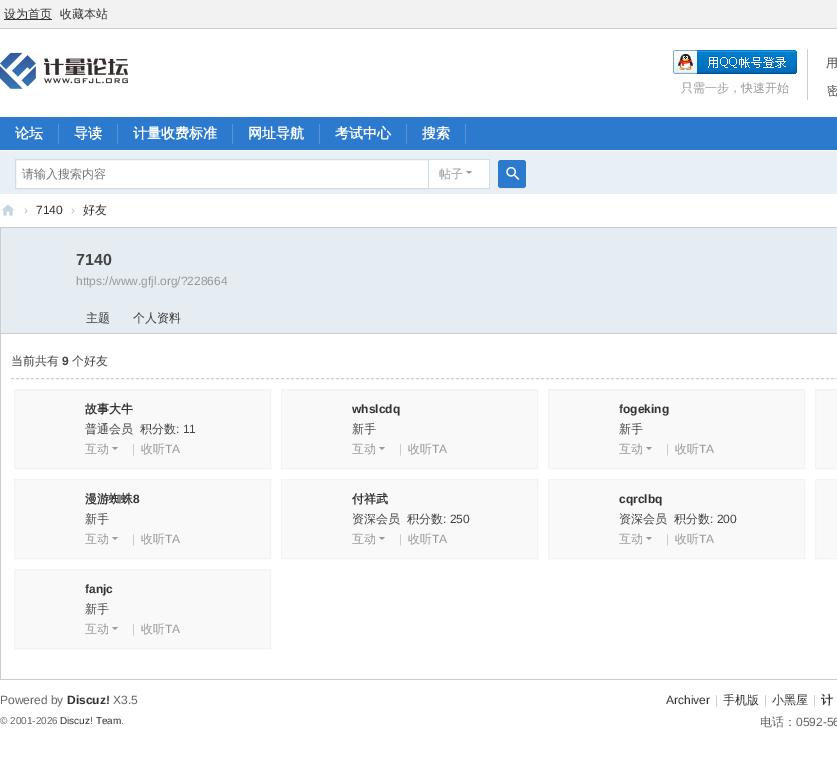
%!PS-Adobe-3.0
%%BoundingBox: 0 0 837 784
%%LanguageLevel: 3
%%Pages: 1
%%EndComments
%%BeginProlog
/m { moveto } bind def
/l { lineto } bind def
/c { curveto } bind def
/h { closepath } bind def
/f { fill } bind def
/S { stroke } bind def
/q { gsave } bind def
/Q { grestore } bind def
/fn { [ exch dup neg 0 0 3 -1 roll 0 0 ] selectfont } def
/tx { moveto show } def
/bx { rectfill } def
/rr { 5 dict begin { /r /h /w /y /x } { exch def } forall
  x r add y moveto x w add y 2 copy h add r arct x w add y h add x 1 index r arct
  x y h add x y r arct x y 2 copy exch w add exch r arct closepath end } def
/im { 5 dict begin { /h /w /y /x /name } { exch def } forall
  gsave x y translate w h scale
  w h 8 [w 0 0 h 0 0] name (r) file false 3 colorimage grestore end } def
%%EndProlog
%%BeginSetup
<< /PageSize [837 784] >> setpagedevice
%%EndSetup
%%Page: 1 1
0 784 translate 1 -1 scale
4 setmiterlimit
1 setgray
0 0 837 784 bx
0.949 setgray
0 0 837 28 bx
0.804 setgray
0 28 837 1 bx
0.2 setgray
4 19 48 1 bx
/WenQuanYiZenHei-Medium 12 fn
(设为首页) 4 18 tx
(收藏本站) 60 18 tx
(image0.raw) 0 52 128 37 im
0.804 setgray
807 49 1 51 bx
(image1.raw) 673 50 124 24 im
0.6 setgray
(只需一步，快速开始) 681 92 tx
0.267 setgray
(用) 826 67 tx
(密) 827 95 tx
0.169 0.478 0.804 setrgbcolor
0 117 837 33 bx
0.333 0.584 0.843 setrgbcolor
58 124 1 20 bx
/WenQuanYiZenHei-Bold 14 fn
1 setgray
(论坛) 15 138 tx
0.333 0.584 0.843 setrgbcolor
117 124 1 20 bx
1 setgray
(导读) 74 138 tx
0.333 0.584 0.843 setrgbcolor
232 124 1 20 bx
1 setgray
(计量收费标准) 133 138 tx
0.333 0.584 0.843 setrgbcolor
319 124 1 20 bx
1 setgray
(网址导航) 248 138 tx
0.333 0.584 0.843 setrgbcolor
406 124 1 20 bx
1 setgray
(考试中心) 335 138 tx
0.333 0.584 0.843 setrgbcolor
465 124 1 20 bx
1 setgray
(搜索) 422 138 tx
0.91 0.937 0.961 setrgbcolor
0 151 837 43 bx
0.812 0.871 0.89 setrgbcolor
427 159 63 1 bx
489 159 1 30 bx
427 188 63 1 bx
1 setgray
15.5 159.5 m 428.5 159.5 l 428.5 188.5 l 15.5 188.5 l h q f Q
0.812 0.871 0.89 setrgbcolor
S
/WenQuanYiZenHei-Medium 12 fn
0.459 setgray
(请输入搜索内容) 22 178 tx
1 setgray
429 160 60 28 bx
0.6 setgray
(帖子) 439 178 tx
466 171 m 472 171 l 469 174 l h f
0.898 setgray
498 185 m 498 189.5 501 189 504.5 189 c 519.5 189 l 523 189 526 189.5 526 185 c 526 186.5 524.5 188 523 188 c 501 188 l 499.5 188 498 186.5 498 185 c h f
0.169 0.478 0.804 setrgbcolor
498 160 28 28 3 rr f
(image2.raw) 506 167 14 13 im
(image3.raw) 1 204 14 12 im
/LiberationSans-Regular 12 fn
0.741 setgray
(›) 24 214 tx
0.2 setgray
(7140) 36 214 tx
0.741 setgray
(›) 71 214 tx
/WenQuanYiZenHei-Medium 12 fn
0.2 setgray
(好友) 83 214 tx
0.898 0.929 0.949 setrgbcolor
1 228 836 105 bx
0.8 setgray
0 227 837 1 bx
0 227 1 107 bx
/LiberationSans-Bold 16 fn
0.267 setgray
(7140) 76 265 tx
/LiberationSans-Regular 12 fn
0.6 setgray
(https://www.gfjl.org/?228664) 76 285 tx
0.804 setgray
1 333 836 1 bx
/WenQuanYiZenHei-Medium 12 fn
0.2 setgray
(主题) 86 322 tx
(个人资料) 133 322 tx
0.8 setgray
0 679 837 1 bx
0 334 1 346 bx
0.804 setgray
[3 2] 0 setdash
11 378.5 m 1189 378.5 l S
0.267 setgray
(当前共有) 11 365 tx
/LiberationSans-Bold 12 fn
(9) 62 365 tx
/WenQuanYiZenHei-Medium 12 fn
(个好友) 72 365 tx
0.976 setgray
14.5 389.5 m 270.5 389.5 l 270.5 468.5 l 14.5 468.5 l h q f Q
0.953 setgray
[] 0 setdash
S
/WenQuanYiZenHei-Bold 12 fn
0.2 setgray
(故事大牛) 85 413 tx
/WenQuanYiZenHei-Medium 12 fn
0.267 setgray
(普通会员) 85 433 tx
(积分数) 140 433 tx
/LiberationSans-Regular 12 fn
(: 11) 176 433 tx
/WenQuanYiZenHei-Medium 12 fn
0.6 setgray
(互动) 85 453 tx
112 447 m 118 447 l 115 450 l h f
/LiberationSans-Regular 12 fn
0.8 setgray
(|) 132 453 tx
/WenQuanYiZenHei-Medium 12 fn
0.6 setgray
(收听) 141 453 tx
/LiberationSans-Regular 12 fn
(TA) 165 453 tx
0.976 setgray
281.5 389.5 m 537.5 389.5 l 537.5 468.5 l 281.5 468.5 l h q f Q
0.953 setgray
S
/LiberationSans-Bold 12 fn
0.2 setgray
(whslcdq) 352 413 tx
/WenQuanYiZenHei-Medium 12 fn
0.267 setgray
(新手) 352 433 tx
0.6 setgray
(互动) 352 453 tx
379 447 m 385 447 l 382 450 l h f
/LiberationSans-Regular 12 fn
0.8 setgray
(|) 399 453 tx
/WenQuanYiZenHei-Medium 12 fn
0.6 setgray
(收听) 408 453 tx
/LiberationSans-Regular 12 fn
(TA) 432 453 tx
0.976 setgray
548.5 389.5 m 804.5 389.5 l 804.5 468.5 l 548.5 468.5 l h q f Q
0.953 setgray
S
/LiberationSans-Bold 12 fn
0.2 setgray
(fogeking) 619 413 tx
/WenQuanYiZenHei-Medium 12 fn
0.267 setgray
(新手) 619 433 tx
0.6 setgray
(互动) 619 453 tx
646 447 m 652 447 l 649 450 l h f
/LiberationSans-Regular 12 fn
0.8 setgray
(|) 666 453 tx
/WenQuanYiZenHei-Medium 12 fn
0.6 setgray
(收听) 675 453 tx
/LiberationSans-Regular 12 fn
(TA) 699 453 tx
0.976 setgray
815.5 389.5 m 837.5 389.5 l 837.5 468.5 l 815.5 468.5 l h q f Q
0.953 setgray
S
0.976 setgray
14.5 479.5 m 270.5 479.5 l 270.5 558.5 l 14.5 558.5 l h q f Q
0.953 setgray
S
/WenQuanYiZenHei-Bold 12 fn
0.2 setgray
(漫游蜘蛛) 85 503 tx
/LiberationSans-Bold 12 fn
(8) 133 503 tx
/WenQuanYiZenHei-Medium 12 fn
0.267 setgray
(新手) 85 523 tx
0.6 setgray
(互动) 85 543 tx
112 537 m 118 537 l 115 540 l h f
/LiberationSans-Regular 12 fn
0.8 setgray
(|) 132 543 tx
/WenQuanYiZenHei-Medium 12 fn
0.6 setgray
(收听) 141 543 tx
/LiberationSans-Regular 12 fn
(TA) 165 543 tx
0.976 setgray
281.5 479.5 m 537.5 479.5 l 537.5 558.5 l 281.5 558.5 l h q f Q
0.953 setgray
S
/WenQuanYiZenHei-Bold 12 fn
0.2 setgray
(付祥武) 352 503 tx
/WenQuanYiZenHei-Medium 12 fn
0.267 setgray
(资深会员) 352 523 tx
(积分数) 407 523 tx
/LiberationSans-Regular 12 fn
(: 250) 443 523 tx
/WenQuanYiZenHei-Medium 12 fn
0.6 setgray
(互动) 352 543 tx
379 537 m 385 537 l 382 540 l h f
/LiberationSans-Regular 12 fn
0.8 setgray
(|) 399 543 tx
/WenQuanYiZenHei-Medium 12 fn
0.6 setgray
(收听) 408 543 tx
/LiberationSans-Regular 12 fn
(TA) 432 543 tx
0.976 setgray
548.5 479.5 m 804.5 479.5 l 804.5 558.5 l 548.5 558.5 l h q f Q
0.953 setgray
S
/LiberationSans-Bold 12 fn
0.2 setgray
(cqrclbq) 619 503 tx
/WenQuanYiZenHei-Medium 12 fn
0.267 setgray
(资深会员) 619 523 tx
(积分数) 674 523 tx
/LiberationSans-Regular 12 fn
(: 200) 710 523 tx
/WenQuanYiZenHei-Medium 12 fn
0.6 setgray
(互动) 619 543 tx
646 537 m 652 537 l 649 540 l h f
/LiberationSans-Regular 12 fn
0.8 setgray
(|) 666 543 tx
/WenQuanYiZenHei-Medium 12 fn
0.6 setgray
(收听) 675 543 tx
/LiberationSans-Regular 12 fn
(TA) 699 543 tx
0.976 setgray
815.5 479.5 m 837.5 479.5 l 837.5 558.5 l 815.5 558.5 l h q f Q
0.953 setgray
S
0.976 setgray
14.5 569.5 m 270.5 569.5 l 270.5 648.5 l 14.5 648.5 l h q f Q
0.953 setgray
S
/LiberationSans-Bold 12 fn
0.2 setgray
(fanjc) 85 593 tx
/WenQuanYiZenHei-Medium 12 fn
0.267 setgray
(新手) 85 613 tx
0.6 setgray
(互动) 85 633 tx
112 627 m 118 627 l 115 630 l h f
/LiberationSans-Regular 12 fn
0.8 setgray
(|) 132 633 tx
/WenQuanYiZenHei-Medium 12 fn
0.6 setgray
(收听) 141 633 tx
/LiberationSans-Regular 12 fn
(TA) 165 633 tx
0.4 setgray
(Powered by) 0 704 tx
/LiberationSans-Bold 12 fn
0.2 setgray
(Discuz!) 67 704 tx
/LiberationSans-Regular 12 fn
0.4 setgray
(X3.5) 113 704 tx
/LiberationSans-Regular 10 fn
(© 2001-2026) 0 724 tx
0.2 setgray
(Discuz! Team) 60 724 tx
0.4 setgray
(.) 121 724 tx
/LiberationSans-Regular 12 fn
0.2 setgray
(Archiver) 666 704 tx
0.8 setgray
(|) 715 704 tx
/WenQuanYiZenHei-Medium 12 fn
0.2 setgray
(手机版) 723 704 tx
/LiberationSans-Regular 12 fn
0.8 setgray
(|) 764 704 tx
/WenQuanYiZenHei-Medium 12 fn
0.2 setgray
(小黑屋) 772 704 tx
/LiberationSans-Regular 12 fn
0.8 setgray
(|) 813 704 tx
/WenQuanYiZenHei-Bold 12 fn
0.2 setgray
(计) 821 704 tx
/WenQuanYiZenHei-Medium 12 fn
0.4 setgray
(电话：) 760 726 tx
/LiberationSans-Regular 12 fn
(0592-56) 796 726 tx
showpage
%%EOF
